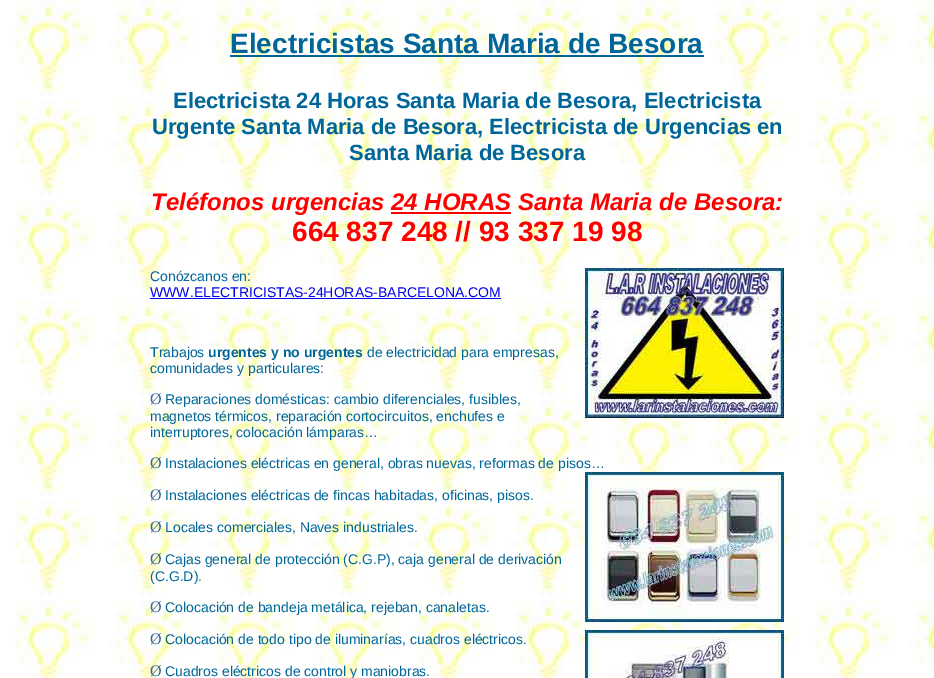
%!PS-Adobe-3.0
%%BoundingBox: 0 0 934 678
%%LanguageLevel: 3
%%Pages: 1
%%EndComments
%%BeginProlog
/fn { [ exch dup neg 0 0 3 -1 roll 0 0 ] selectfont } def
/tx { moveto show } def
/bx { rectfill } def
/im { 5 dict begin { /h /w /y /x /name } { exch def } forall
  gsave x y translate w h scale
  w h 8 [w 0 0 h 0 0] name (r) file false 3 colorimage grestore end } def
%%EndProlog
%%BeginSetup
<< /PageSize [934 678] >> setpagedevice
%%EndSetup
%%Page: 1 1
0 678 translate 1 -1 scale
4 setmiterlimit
1 setgray
0 0 934 678 bx
(image0.raw) 15 0 919 678 im
/LiberationSans-Bold 28 fn
0 0.4 0.6 setrgbcolor
(Electricistas Santa Maria de Besora) 230 53 tx
230 55 474 2 bx
/LiberationSans-Bold 22 fn
(Electricista 24 Horas Santa Maria de Besora, Electricista) 173 108 tx
(Urgente Santa Maria de Besora, Electricista de Urgencias en) 152 134 tx
(Santa Maria de Besora) 349 160 tx
/LiberationSans-BoldItalic 24 fn
1 0 0 setrgbcolor
(Teléfonos urgencias 24 HORAS Santa Maria de Besora:) 151 210 tx
391 212 120 2 bx
/LiberationSans-Bold 28 fn
(664 837 248 // 93 337 19 98) 292 241 tx
/LiberationSans-Regular 14 fn
0 0.4 0.6 setrgbcolor
(Conózcanos en:) 150 281 tx
(image1.raw) 585 268 199 150 im
0 0 0.933 setrgbcolor
(WWW.ELECTRICISTAS-24HORAS-BARCELONA.COM) 150 297 tx
150 298 351 1 bx
0 0.4 0.6 setrgbcolor
(Trabajos) 150 357 tx
/LiberationSans-Bold 14 fn
(urgentes y no urgentes) 208 357 tx
/LiberationSans-Regular 14 fn
(de electricidad para empresas,) 367 357 tx
(comunidades y particulares:) 150 373 tx
/LiberationSerif-Regular 16 fn
0.2 0.4 0.6 setrgbcolor
(Ø) 150 404 tx
/LiberationSans-Regular 14 fn
0 0.4 0.6 setrgbcolor
(Reparaciones domésticas: cambio diferenciales, fusibles,) 165 404 tx
(magnetos térmicos, reparación cortocircuitos, enchufes e) 150 421 tx
(interruptores, colocación lámparas…) 150 437 tx
/LiberationSerif-Regular 16 fn
0.2 0.4 0.6 setrgbcolor
(Ø) 150 468 tx
/LiberationSans-Regular 14 fn
0 0.4 0.6 setrgbcolor
(Instalaciones eléctricas en general, obras nuevas, reformas de pisos…) 165 468 tx
(image2.raw) 585 472 199 150 im
/LiberationSerif-Regular 16 fn
0.2 0.4 0.6 setrgbcolor
(Ø) 150 500 tx
/LiberationSans-Regular 14 fn
0 0.4 0.6 setrgbcolor
(Instalaciones eléctricas de fincas habitadas, oficinas, pisos.) 165 500 tx
/LiberationSerif-Regular 16 fn
0.2 0.4 0.6 setrgbcolor
(Ø) 150 532 tx
/LiberationSans-Regular 14 fn
0 0.4 0.6 setrgbcolor
(Locales comerciales, Naves industriales.) 165 532 tx
/LiberationSerif-Regular 16 fn
0.2 0.4 0.6 setrgbcolor
(Ø) 150 564 tx
/LiberationSans-Regular 14 fn
0 0.4 0.6 setrgbcolor
(Cajas general de protección \(C.G.P\), caja general de derivación) 165 564 tx
(\(C.G.D\).) 150 581 tx
/LiberationSerif-Regular 16 fn
0.2 0.4 0.6 setrgbcolor
(Ø) 150 612 tx
/LiberationSans-Regular 14 fn
0 0.4 0.6 setrgbcolor
(Colocación de bandeja metálica, rejeban, canaletas.) 165 612 tx
/LiberationSerif-Regular 16 fn
0.2 0.4 0.6 setrgbcolor
(Ø) 150 644 tx
/LiberationSans-Regular 14 fn
0 0.4 0.6 setrgbcolor
(Colocación de todo tipo de iluminarías, cuadros eléctricos.) 165 644 tx
(image3.raw) 585 630 199 48 im
/LiberationSerif-Regular 16 fn
0.2 0.4 0.6 setrgbcolor
(Ø) 150 676 tx
/LiberationSans-Regular 14 fn
0 0.4 0.6 setrgbcolor
(Cuadros eléctricos de control y maniobras.) 165 676 tx
showpage
%%EOF
